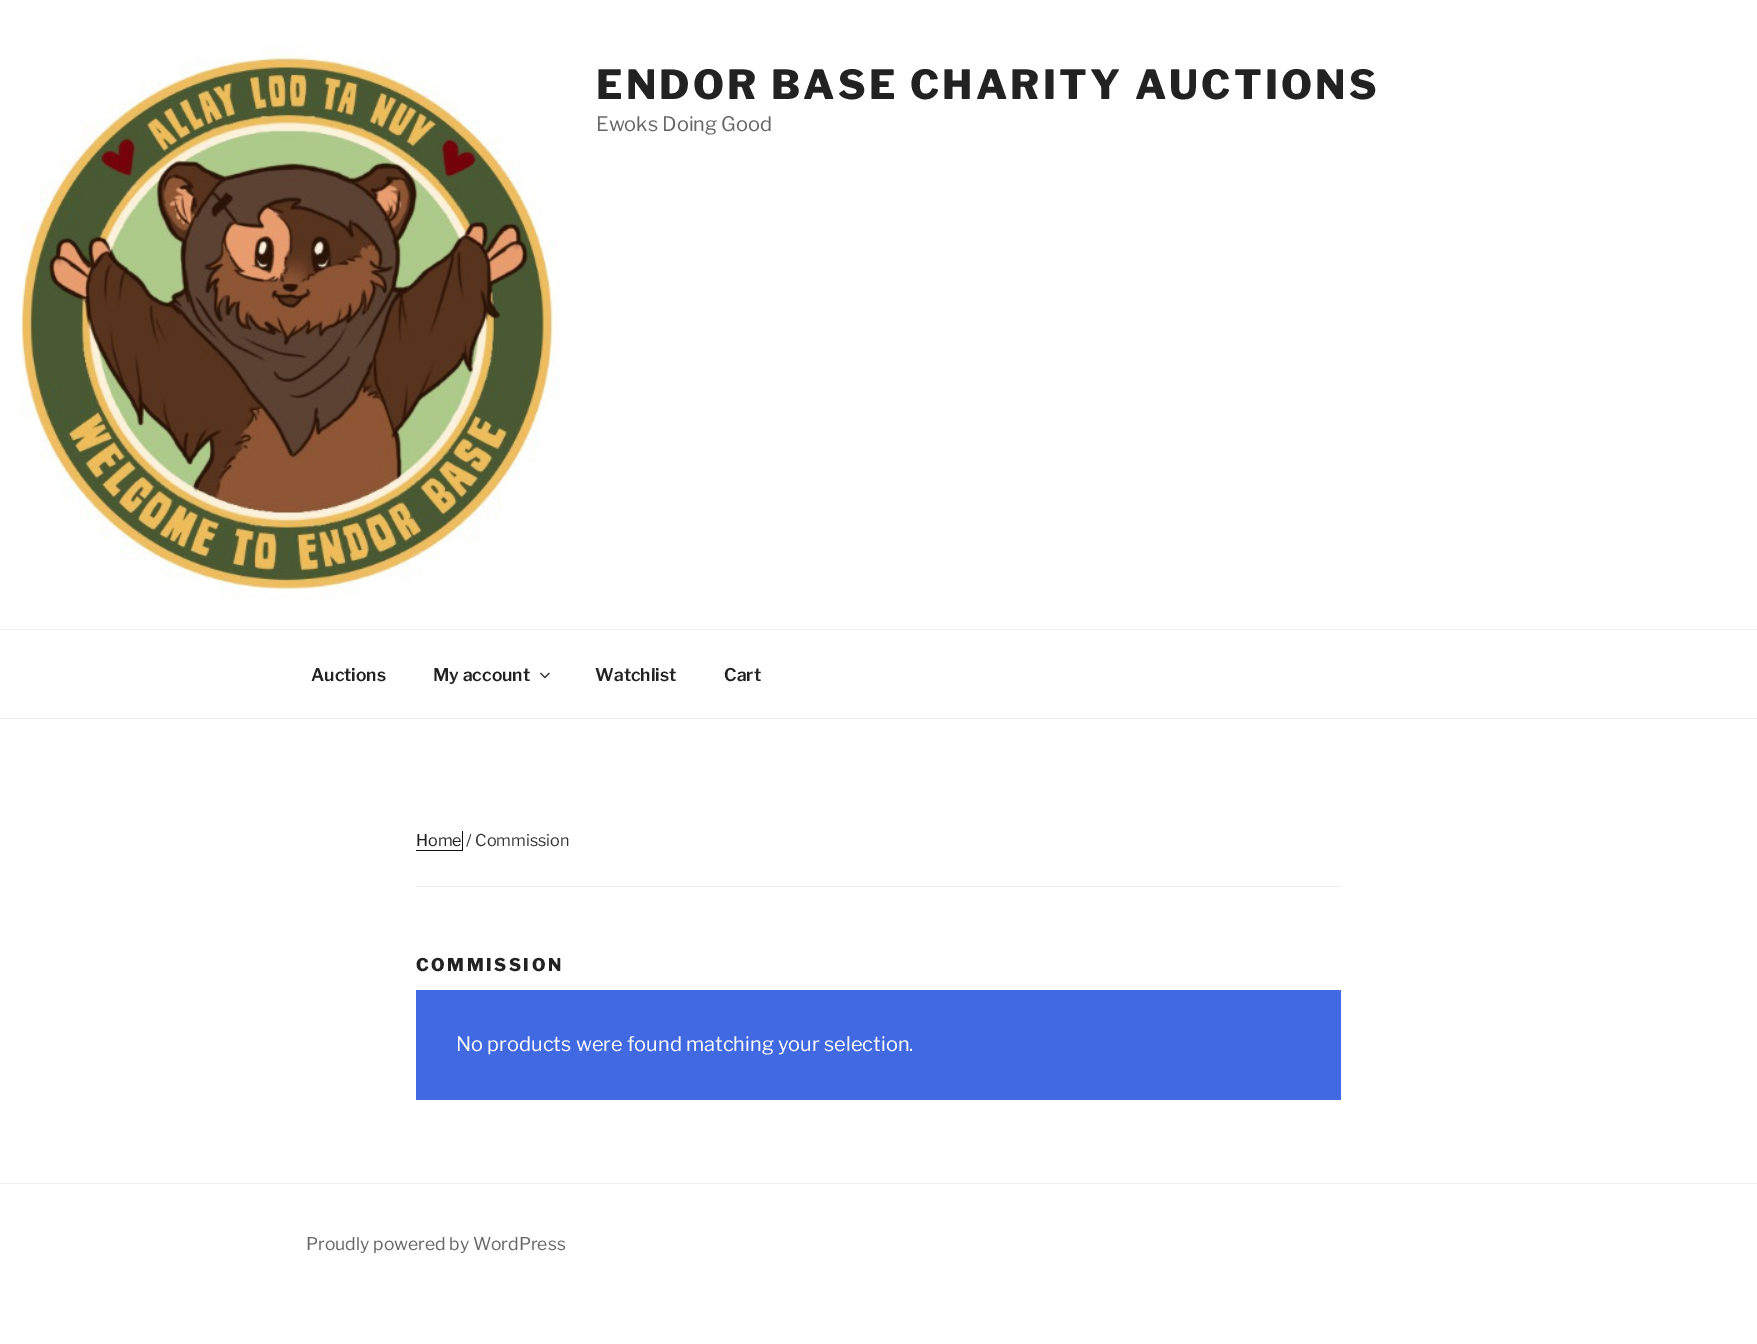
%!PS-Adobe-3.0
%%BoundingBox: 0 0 1757 1344
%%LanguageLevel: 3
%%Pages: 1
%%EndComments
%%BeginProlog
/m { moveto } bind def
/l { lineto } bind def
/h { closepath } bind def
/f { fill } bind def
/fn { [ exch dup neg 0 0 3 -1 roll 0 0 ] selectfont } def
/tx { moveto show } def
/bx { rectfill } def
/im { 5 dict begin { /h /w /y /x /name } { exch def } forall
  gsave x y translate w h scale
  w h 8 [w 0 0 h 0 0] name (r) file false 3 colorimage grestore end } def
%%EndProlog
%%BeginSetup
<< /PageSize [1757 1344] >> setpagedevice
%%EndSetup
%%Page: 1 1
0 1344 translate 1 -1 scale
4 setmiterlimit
1 setgray
0 0 1757 1344 bx
(image0.raw) 19 43 541 557 im
/LibreFranklin-ExtraBold 40 fn
0.133 setgray
596 99 m 3.2 0 (ENDOR BASE CHARITY AUCTIONS) ashow
/LibreFranklin-Regular 20 fn
0.4 setgray
(Ewoks Doing Good) 596 131 tx
0.933 setgray
0 629 1757 1 bx
0 718 1757 1 bx
/LibreFranklin-SemiBold 17.5 fn
0.133 setgray
(Auctions) 311 681 tx
(My account) 433 681 tx
(image1.raw) 540 672 10 7 im
(Watchlist) 595 681 tx
(Cart) 724 681 tx
0.933 setgray
416 886 925 1 bx
0.059 setgray
416 831 m 416 851 l 463 851 l 463 831 l 462 831 l 462 850 l 416 850 l h f
/LibreFranklin-Regular 16.25 fn
0.133 setgray
(Home) 416 846 tx
0.2 setgray
(/ Commission) 466 846 tx
/LibreFranklin-ExtraBold 17.5 fn
0.133 setgray
416 971 m 2.5 0 (COMMISSION) ashow
0.255 0.412 0.882 setrgbcolor
416 990 925 110 bx
/LibreFranklin-Regular 20 fn
1 setgray
(No products were found matching your selection.) 456 1051 tx
0.933 setgray
0 1183 1757 1 bx
/LibreFranklin-Regular 17.5 fn
0.4 setgray
(Proudly powered by WordPress) 306 1250 tx
showpage
%%EOF
